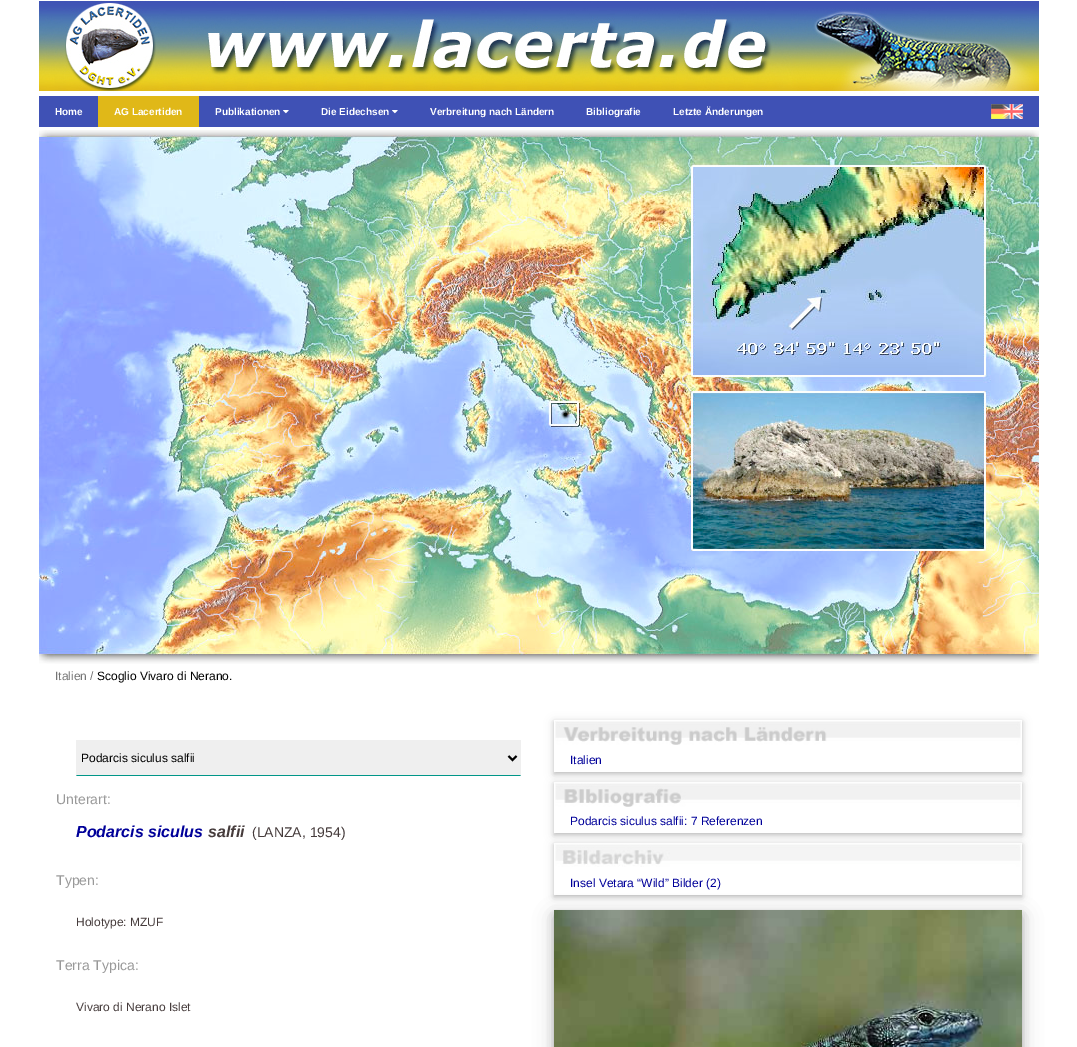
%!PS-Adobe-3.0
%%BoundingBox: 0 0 1077 1047
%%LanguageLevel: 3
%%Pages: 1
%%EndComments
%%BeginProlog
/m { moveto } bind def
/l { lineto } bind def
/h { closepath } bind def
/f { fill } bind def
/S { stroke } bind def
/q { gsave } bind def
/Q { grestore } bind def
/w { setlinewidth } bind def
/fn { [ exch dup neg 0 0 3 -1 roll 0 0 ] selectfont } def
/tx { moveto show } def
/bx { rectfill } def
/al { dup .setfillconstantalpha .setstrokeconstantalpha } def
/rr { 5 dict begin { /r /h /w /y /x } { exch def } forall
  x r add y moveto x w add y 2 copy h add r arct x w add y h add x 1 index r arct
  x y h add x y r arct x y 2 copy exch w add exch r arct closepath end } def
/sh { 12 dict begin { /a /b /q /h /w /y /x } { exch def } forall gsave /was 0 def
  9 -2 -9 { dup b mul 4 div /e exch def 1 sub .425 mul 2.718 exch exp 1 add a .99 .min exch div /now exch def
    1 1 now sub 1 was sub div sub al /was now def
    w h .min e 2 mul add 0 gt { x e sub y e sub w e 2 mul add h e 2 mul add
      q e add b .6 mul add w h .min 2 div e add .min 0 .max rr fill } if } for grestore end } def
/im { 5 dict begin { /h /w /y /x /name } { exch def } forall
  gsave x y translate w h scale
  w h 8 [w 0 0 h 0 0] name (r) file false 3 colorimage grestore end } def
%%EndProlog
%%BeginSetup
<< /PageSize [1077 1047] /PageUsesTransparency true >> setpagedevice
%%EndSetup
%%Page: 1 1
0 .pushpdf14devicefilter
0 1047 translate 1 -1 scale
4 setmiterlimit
1 setgray
0 0 1077 1047 bx
(image0.raw) 39 0 1000 94 im
0.247 0.318 0.71 setrgbcolor
39 96 1000 31 bx
/LiberationSans-Bold 10 fn
1 setgray
(Home) 55 115 tx
0.878 0.722 0.094 setrgbcolor
98 96 101 31 bx
1 setgray
(AG Lacertiden) 114 115 tx
(Publikationen) 215 115 tx
(image1.raw) 283 110 6 4 im
(Die Eidechsen) 321 115 tx
(image1.raw) 392 110 6 4 im
(Verbreitung nach Ländern) 430 115 tx
(Bibliografie) 586 115 tx
(Letzte Änderungen) 673 115 tx
(image2.raw) 991 104 32 15 im
(image3.raw) 39 130 1000 534 im
/LiberationSans-Regular 12 fn
0.459 setgray
(Italien /) 55 680 tx
0 setgray
(Scoglio Vivaro di Nerano.) 97 680 tx
0.937 setgray
76 740 445 36 bx
0 0.588 0.533 setrgbcolor
521 776 m 76 776 l 77 775 l 520 775 l h f
0 setgray
2 w
508.5 756 m 512.5 760 l 516.5 756 l S
(Podarcis siculus salfii) 81 762 tx
/LiberationSans-Regular 14 fn
0.6 setgray
(Unterart:) 56 804 tx
/LiberationSans-BoldItalic 16 fn
0 0 0.6 setrgbcolor
(Podarcis siculus) 76 837 tx
0.275 0.235 0.235 setrgbcolor
(salfii) 208 837 tx
/LiberationSans-Regular 14 fn
(\(LANZA, 1954\)) 252 837 tx
0.6 setgray
(Typen:) 56 885 tx
/LiberationSans-Regular 12 fn
0.275 0.235 0.235 setrgbcolor
(Holotype: MZUF) 76 926 tx
/LiberationSans-Regular 14 fn
0.6 setgray
(Terra Typica:) 56 970 tx
/LiberationSans-Regular 12 fn
0.275 0.235 0.235 setrgbcolor
(Vivaro di Nerano Islet) 76 1011 tx
q
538 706 m 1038 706 l 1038 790 l 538 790 l h 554 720 m 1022 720 l 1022 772 l 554 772 l h eoclip newpath
0 setgray
554 722 468 52 0 5 0.12 sh
Q
q
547 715 m 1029 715 l 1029 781 l 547 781 l h 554 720 m 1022 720 l 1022 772 l 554 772 l h eoclip newpath
0 setgray
554 722 468 52 0 2 0.16 sh
Q
(image4.raw) 555 721 466 24 im
0 0 0.6 setrgbcolor
(Italien) 570 764 tx
q
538 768 m 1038 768 l 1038 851 l 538 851 l h 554 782 m 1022 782 l 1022 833 l 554 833 l h eoclip newpath
0 setgray
554 784 468 51 0 5 0.12 sh
Q
q
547 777 m 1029 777 l 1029 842 l 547 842 l h 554 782 m 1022 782 l 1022 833 l 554 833 l h eoclip newpath
0 setgray
554 784 468 51 0 2 0.16 sh
Q
(image5.raw) 555 783 466 24 im
(Podarcis siculus salfii: 7 Referenzen) 570 825 tx
q
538 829 m 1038 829 l 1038 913 l 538 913 l h 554 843 m 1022 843 l 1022 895 l 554 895 l h eoclip newpath
0 setgray
554 845 468 52 0 5 0.12 sh
Q
q
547 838 m 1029 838 l 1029 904 l 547 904 l h 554 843 m 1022 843 l 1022 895 l 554 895 l h eoclip newpath
0 setgray
554 845 468 52 0 2 0.16 sh
Q
(image6.raw) 555 844 466 23 im
0 setgray
554 916 468 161 0 10 0.19 sh
0 0 0.6 setrgbcolor
(Insel Vetara “Wild” Bilder \(2\)) 570 887 tx
0 setgray
554 914 468 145 0 4 0.2 sh
(image7.raw) 554 910 468 137 im
.poppdf14devicefilter showpage
%%EOF
